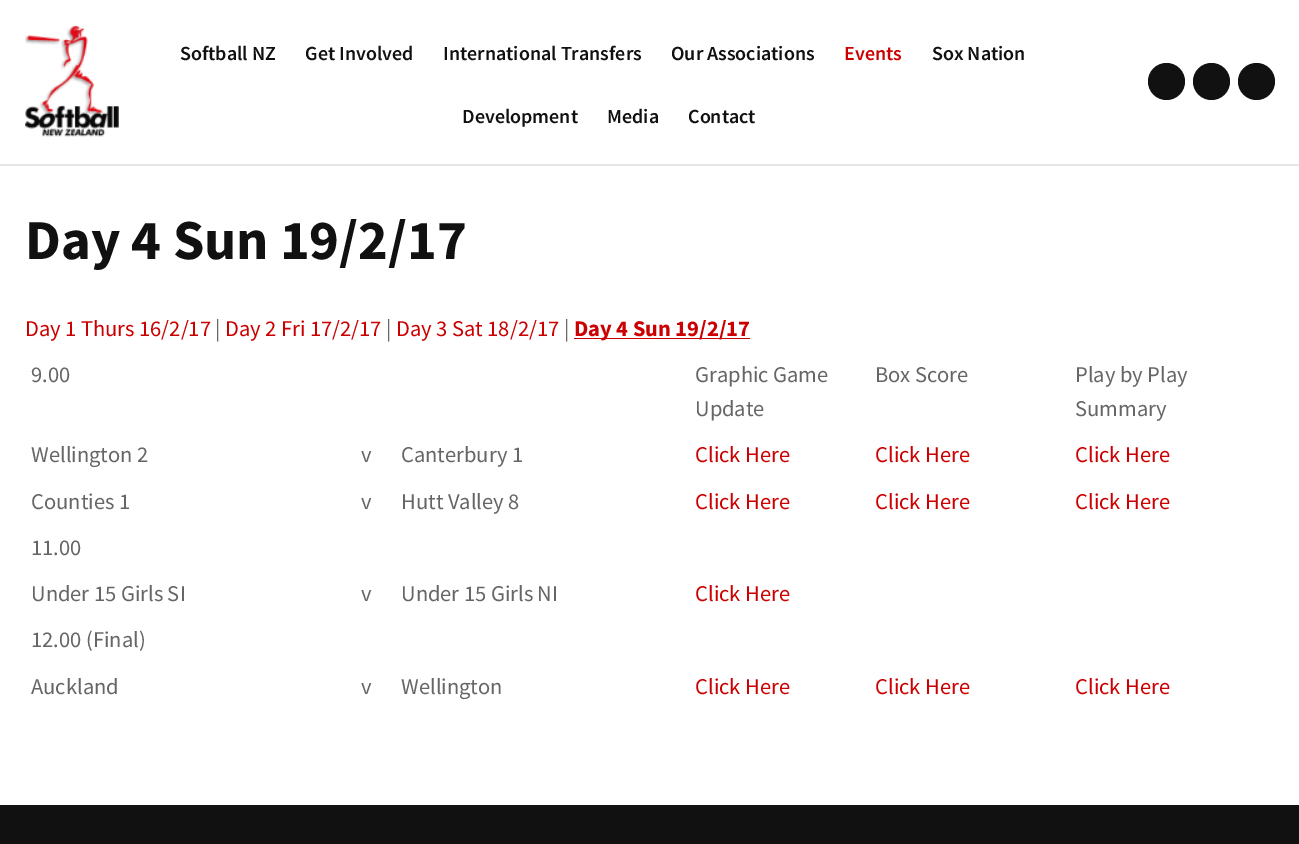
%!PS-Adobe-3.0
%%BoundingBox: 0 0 1299 844
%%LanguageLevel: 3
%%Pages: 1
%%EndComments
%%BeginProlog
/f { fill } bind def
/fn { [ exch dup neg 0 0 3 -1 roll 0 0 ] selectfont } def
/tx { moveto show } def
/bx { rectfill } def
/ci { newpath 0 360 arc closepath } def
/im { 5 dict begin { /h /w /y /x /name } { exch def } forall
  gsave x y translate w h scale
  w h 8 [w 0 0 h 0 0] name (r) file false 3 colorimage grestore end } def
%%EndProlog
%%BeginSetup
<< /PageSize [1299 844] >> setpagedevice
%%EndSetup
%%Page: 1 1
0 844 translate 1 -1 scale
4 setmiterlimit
1 setgray
0 0 1299 844 bx
(image0.raw) 25 26 94 111 im
/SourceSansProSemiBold-SemiBold 20 fn
0.067 setgray
(Softball NZ) 180 60 tx
(Get Involved) 305 60 tx
(International Transfers) 443 60 tx
(Our Associations) 671 60 tx
0.8 0 0 setrgbcolor
(Events) 844 60 tx
0.067 setgray
(Sox Nation) 932 60 tx
(Development) 462 123 tx
(Media) 607 123 tx
(Contact) 688 123 tx
1166.5 81.5 18.5 ci f
1211.5 81.5 18.5 ci f
1256.5 81.5 18.5 ci f
0.902 setgray
0 164 1299 2 bx
/SourceSansPro-Bold 56.5 fn
0.067 setgray
(Day 4 Sun 19/2/17) 25 259 tx
/SourceSansPro-Regular 22.5 fn
0.8 0 0 setrgbcolor
(Day 1 Thurs 16/2/17) 25 336 tx
0.4 setgray
(|) 215 336 tx
0.8 0 0 setrgbcolor
(Day 2 Fri 17/2/17) 225 336 tx
0.4 setgray
(|) 386 336 tx
0.8 0 0 setrgbcolor
(Day 3 Sat 18/2/17) 396 336 tx
0.4 setgray
(|) 564 336 tx
0.8 0 0 setrgbcolor
574 338 176 1 bx
/SourceSansPro-Bold 22.5 fn
(Day 4 Sun 19/2/17) 574 336 tx
/SourceSansPro-Regular 22.5 fn
0.4 setgray
(9.00) 31 382 tx
(Graphic Game) 695 382 tx
(Update) 695 416 tx
(Box Score) 875 382 tx
(Play by Play) 1075 382 tx
(Summary) 1075 416 tx
(Wellington 2) 31 462 tx
(v) 361 462 tx
(Canterbury 1) 401 462 tx
0.8 0 0 setrgbcolor
(Click Here) 695 462 tx
(Click Here) 875 462 tx
(Click Here) 1075 462 tx
0.4 setgray
(Counties 1) 31 509 tx
(v) 361 509 tx
(Hutt Valley 8) 401 509 tx
0.8 0 0 setrgbcolor
(Click Here) 695 509 tx
(Click Here) 875 509 tx
(Click Here) 1075 509 tx
0.4 setgray
(11.00) 31 555 tx
(Under 15 Girls SI) 31 601 tx
(v) 361 601 tx
(Under 15 Girls NI) 401 601 tx
0.8 0 0 setrgbcolor
(Click Here) 695 601 tx
0.4 setgray
(12.00 \(Final\)) 31 647 tx
(Auckland) 31 694 tx
(v) 361 694 tx
(Wellington) 401 694 tx
0.8 0 0 setrgbcolor
(Click Here) 695 694 tx
(Click Here) 875 694 tx
(Click Here) 1075 694 tx
0.067 setgray
0 805 1299 39 bx
showpage
%%EOF
